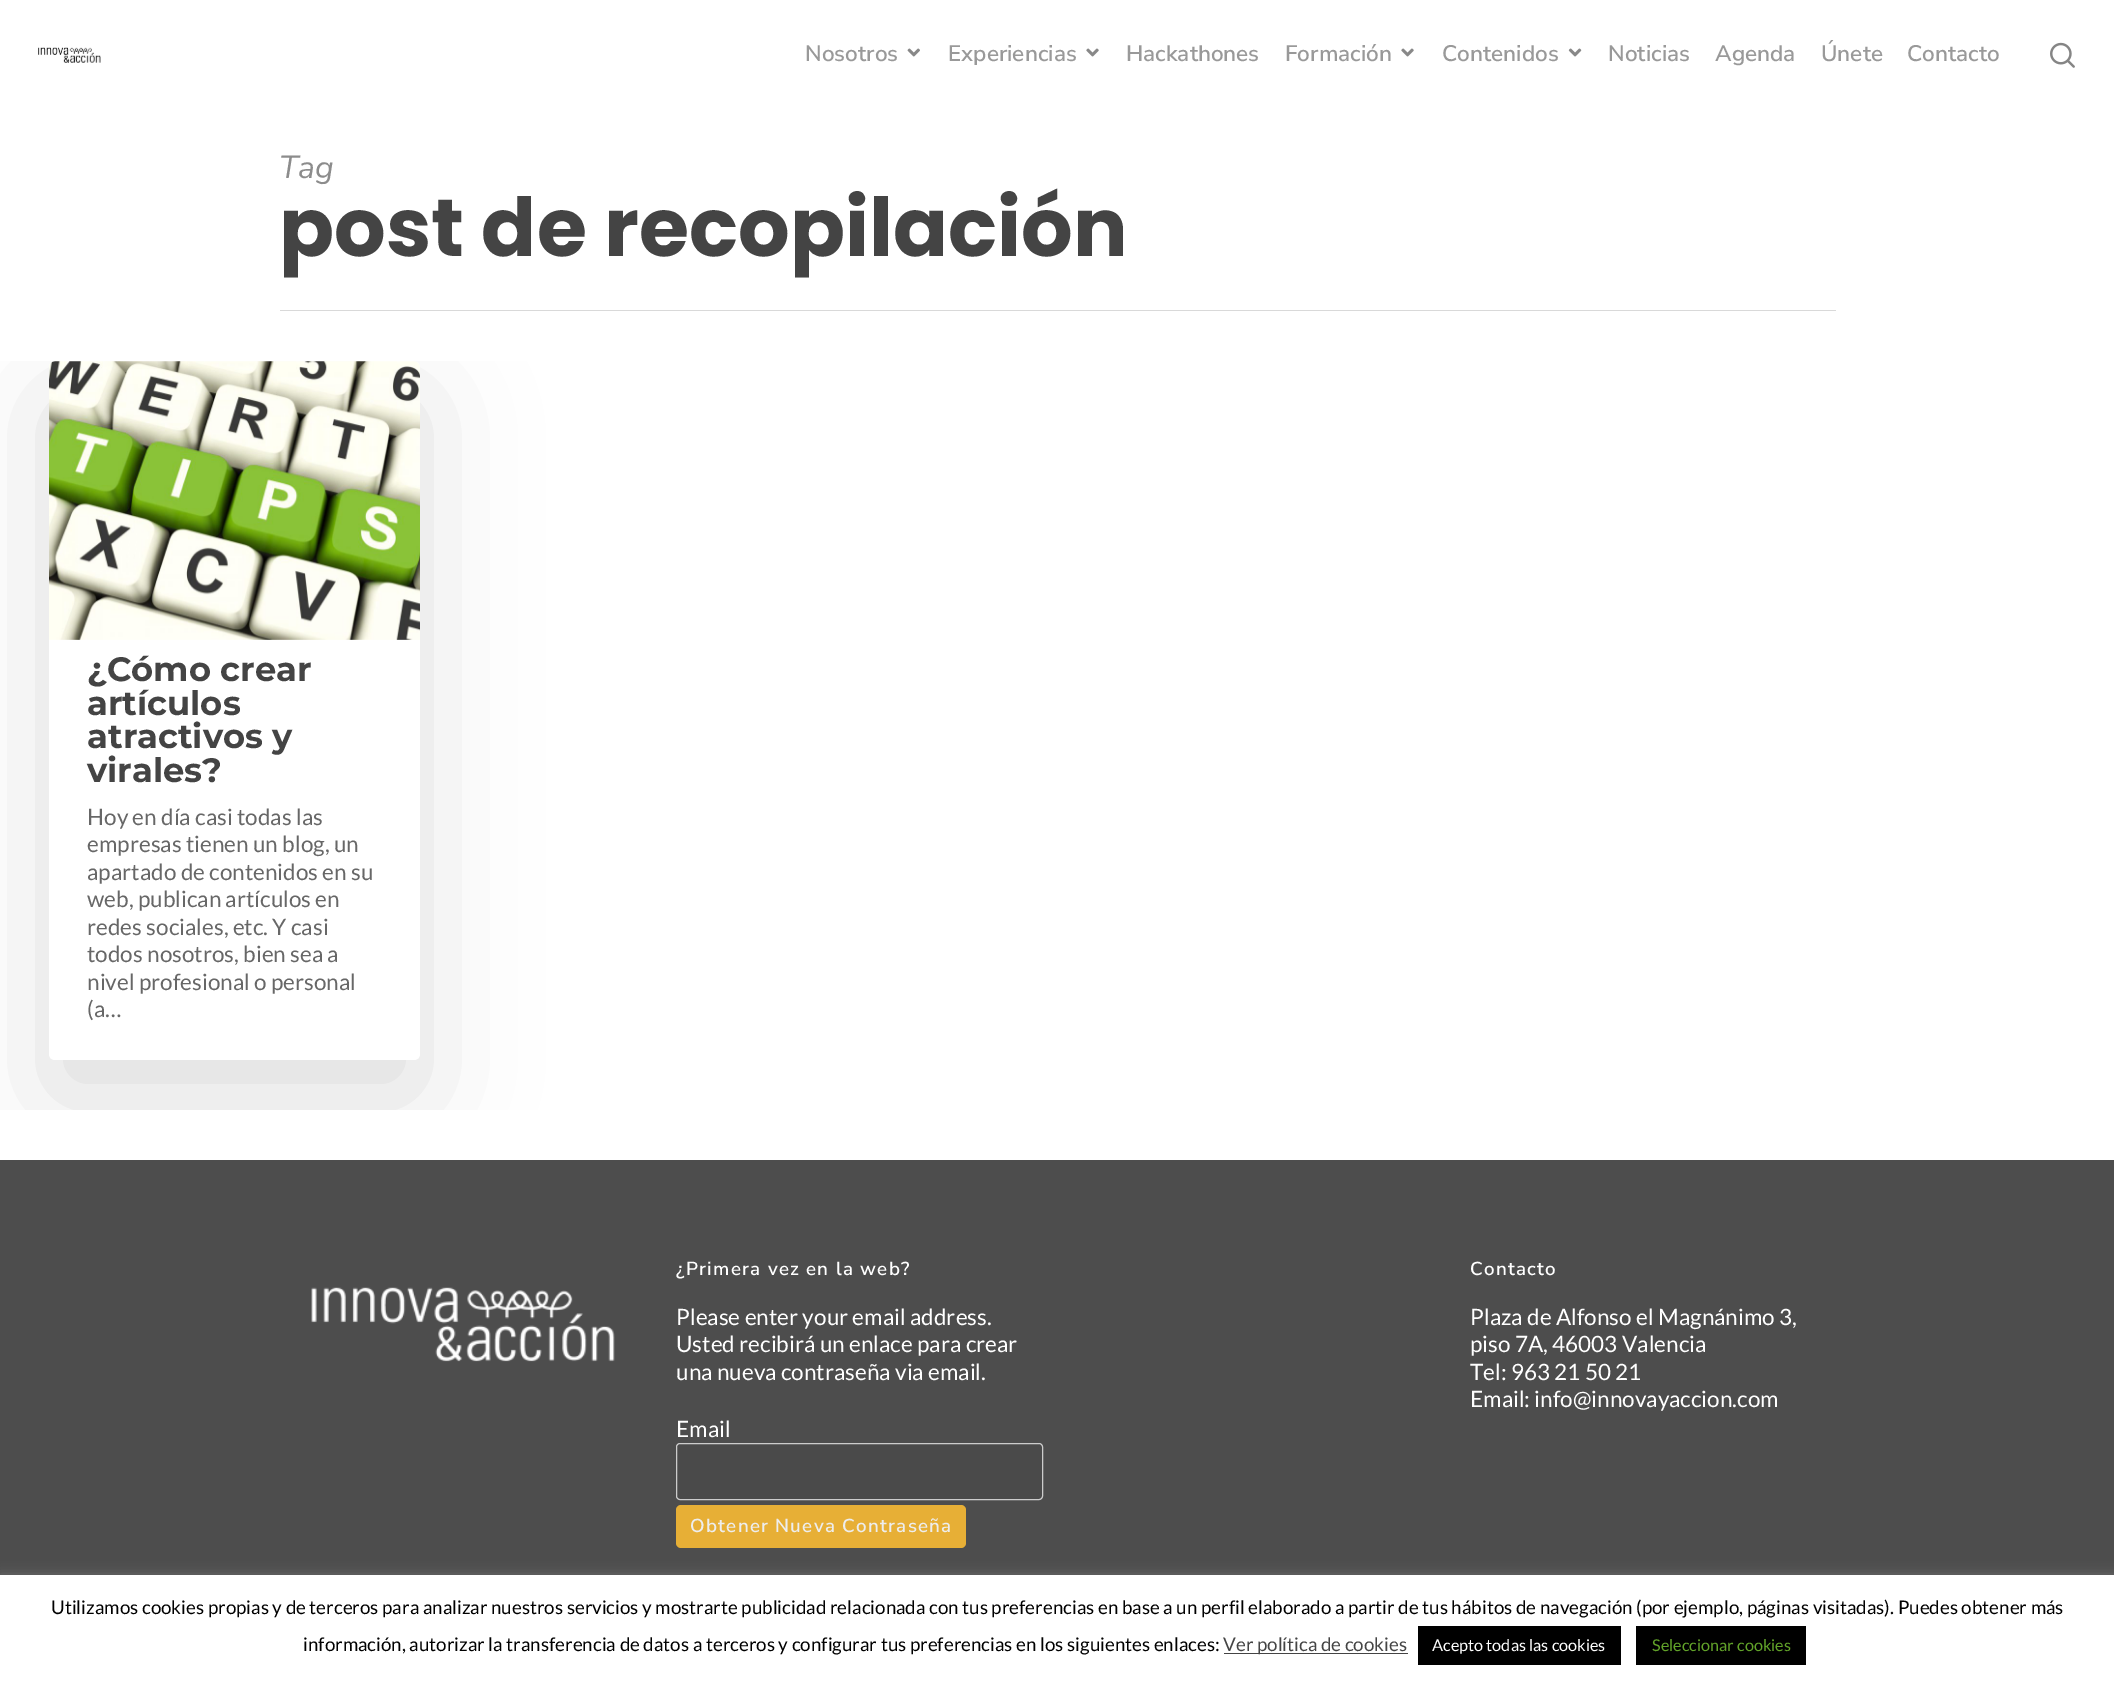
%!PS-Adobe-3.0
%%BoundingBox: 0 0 2114 1686
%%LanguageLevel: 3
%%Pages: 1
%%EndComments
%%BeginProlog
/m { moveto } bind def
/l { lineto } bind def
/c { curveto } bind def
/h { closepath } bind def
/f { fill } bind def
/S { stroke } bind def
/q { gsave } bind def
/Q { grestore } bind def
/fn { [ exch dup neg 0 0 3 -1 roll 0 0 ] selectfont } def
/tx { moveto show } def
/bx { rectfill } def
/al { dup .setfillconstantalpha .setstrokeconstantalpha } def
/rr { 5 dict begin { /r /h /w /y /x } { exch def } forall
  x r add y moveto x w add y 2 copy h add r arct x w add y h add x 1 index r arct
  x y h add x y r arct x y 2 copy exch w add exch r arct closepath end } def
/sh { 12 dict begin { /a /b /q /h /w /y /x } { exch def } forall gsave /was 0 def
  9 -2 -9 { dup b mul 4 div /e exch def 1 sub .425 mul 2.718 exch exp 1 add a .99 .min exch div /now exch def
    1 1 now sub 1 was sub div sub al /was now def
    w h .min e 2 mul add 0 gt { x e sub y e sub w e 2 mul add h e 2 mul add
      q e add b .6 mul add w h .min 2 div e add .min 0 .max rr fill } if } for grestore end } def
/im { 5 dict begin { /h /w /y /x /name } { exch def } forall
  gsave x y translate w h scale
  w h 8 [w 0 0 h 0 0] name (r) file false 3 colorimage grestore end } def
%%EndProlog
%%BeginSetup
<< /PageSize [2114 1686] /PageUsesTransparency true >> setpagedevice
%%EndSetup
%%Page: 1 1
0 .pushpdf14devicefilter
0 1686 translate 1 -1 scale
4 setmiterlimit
1 setgray
0 0 2114 1686 bx
(image0.raw) 38 47 63 16 im
/NunitoSans-SemiBold 22.5 fn
0.6 setgray
(Nosotros) 805 61 tx
(image1.raw) 907 48 13 9 im
(Experiencias) 948 61 tx
(image2.raw) 1086 48 13 9 im
(Hackathones) 1126 61 tx
(Formación) 1285 61 tx
(image2.raw) 1401 48 13 9 im
(Contenidos) 1442 61 tx
(image3.raw) 1568 48 14 9 im
(Noticias) 1608 61 tx
(Agenda) 1715 61 tx
(Únete) 1821 61 tx
(Contacto) 1907 61 tx
(image4.raw) 2050 42 25 26 im
q
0 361 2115 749 rectclip
0 setgray
49 399 371 699 6 56 0.14 sh
Q
0.851 setgray
280 310 1556 1 bx
/NunitoSans-ExtraLightItalic 32 fn
0.549 setgray
(Tag) 279 178 tx
/Poppins-Bold 81.25 fn
0.267 setgray
(post de recopilación) 279 256 tx
(image5.raw) 49 361 371 279 im
1 setgray
49 640 m 420 640 l 420 1054 l 420 1057.5 417.5 1060 414 1060 c 55 1060 l 51.5 1060 49 1057.5 49 1054 c h f
/Montserrat-Thin 33.75 fn
0.267 setgray
(¿Cómo crear) 87 681 tx
(artículos) 87 715 tx
(atractivos y) 87 748 tx
(virales?) 87 782 tx
/Lato-Regular 22.5 fn
0.404 setgray
(Hoy en día casi todas las) 87 825 tx
(empresas tienen un blog, un) 87 852 tx
(apartado de contenidos en su) 87 880 tx
(web, publican artículos en) 87 907 tx
(redes sociales, etc. Y casi) 87 935 tx
(todos nosotros, bien sea a) 87 962 tx
(nivel profesional o personal) 87 990 tx
(\(a…) 87 1017 tx
0.302 setgray
0 1160 2114 415 bx
(image6.raw) 311 1287 304 75 im
/NunitoSans-SemiBold 18.75 fn
1 setgray
676 1275 m 1.25 0 (¿Primera vez en la web?) ashow
/Lato-Regular 22.5 fn
(Please enter your email address.) 676 1325 tx
(Usted recibirá un enlace para crear) 676 1352 tx
(una nueva contraseña via email.) 676 1380 tx
(Email) 676 1437 tx
0.29 setgray
676.5 1443.5 366 56 3.5 rr q f Q
0.8 setgray
S
0.906 0.686 0.212 setrgbcolor
676 1505 290 43 5 rr f
/NunitoSans-SemiBold 18.75 fn
0.929 setgray
690 1532 m 1.25 0 (Obtener Nueva Contraseña) ashow
1 setgray
1470 1275 m 1.25 0 (Contacto) ashow
/Lato-Regular 22.5 fn
(Plaza de Alfonso el Magnánimo 3,) 1470 1325 tx
(piso 7A, 46003 Valencia) 1470 1352 tx
(Tel: 963 21 50 21) 1470 1380 tx
(Email: info@innovayaccion.com) 1470 1407 tx
0.675 0.671 0.671 setrgbcolor
0 1574 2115 111 0 6 0.3 sh
1 setgray
0 1575 2114 111 bx
/Lato-Regular 18.75 fn
0 setgray
(Utilizamos cookies propias y de terceros para analizar nuestros servicios y mostrarte publicidad relacionada con tus preferencias en base a un perfil elaborado a partir de tus hábitos de navegación \(por ejemplo, páginas visitadas\). Puedes obtener más) 51 1614 tx
(información, autorizar la transferencia de datos a terceros y configurar tus preferencias en los siguientes enlaces:) 303 1651 tx
0.267 setgray
1224 1653 184 1 bx
(Ver política de cookies) 1223 1651 tx
0 setgray
1418 1626 203 39 bx
/Lato-Regular 16.25 fn
1 setgray
(Acepto todas las cookies) 1432 1651 tx
0 setgray
1636 1626 170 39 bx
0.384 0.639 0.161 setrgbcolor
(Seleccionar cookies) 1652 1651 tx
.poppdf14devicefilter showpage
%%EOF
